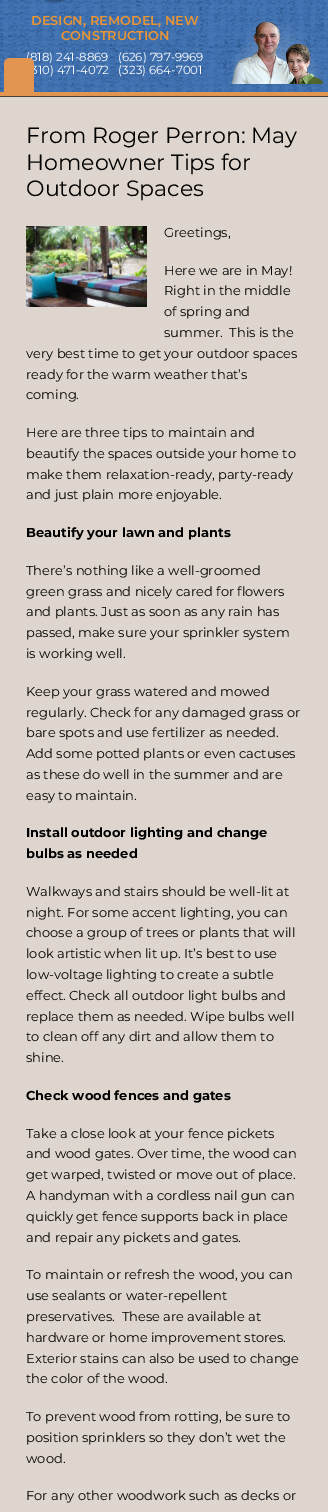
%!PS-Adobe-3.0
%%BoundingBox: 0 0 328 1512
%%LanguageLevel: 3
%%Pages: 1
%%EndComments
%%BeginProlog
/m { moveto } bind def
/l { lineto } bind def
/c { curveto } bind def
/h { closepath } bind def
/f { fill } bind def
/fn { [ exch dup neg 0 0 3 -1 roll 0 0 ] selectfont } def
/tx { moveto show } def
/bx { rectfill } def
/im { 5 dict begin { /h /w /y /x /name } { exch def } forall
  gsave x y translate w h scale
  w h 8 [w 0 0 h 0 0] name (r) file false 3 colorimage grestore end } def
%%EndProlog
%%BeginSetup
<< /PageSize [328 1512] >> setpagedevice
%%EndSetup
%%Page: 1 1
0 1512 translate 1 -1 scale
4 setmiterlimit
0.871 0.839 0.808 setrgbcolor
0 0 328 1512 bx
(image0.raw) 0 0 328 92 im
(image1.raw) 44 0 23 4 im
/Montserrat-SemiBold 12.9 fn
0.914 0.58 0.208 setrgbcolor
(DESIGN, REMODEL, NEW) 31 25 tx
(CONSTRUCTION) 61 40 tx
/Montserrat-Regular 11.75 fn
1 setgray
(\(818\) 241-8869   \(626\) 797-9969) 26 61 tx
(310\) 471-4072   \(323\) 664-7001) 31 74 tx
(image2.raw) 230 20 94 64 im
0.886 0.584 0.314 setrgbcolor
0 92 328 4 bx
10 58 m 28 58 l 31.5 58 34 60.5 34 64 c 34 92 l 4 92 l 4 64 l 4 60.5 6.5 58 10 58 c h f
0.263 0.263 0.204 setrgbcolor
0 96 328 1 bx
/Montserrat-Regular 22.1 fn
0 setgray
(From Roger Perron: May) 26 143 tx
(Homeowner Tips for) 26 170 tx
(Outdoor Spaces) 26 196 tx
(image3.raw) 26 226 121 81 im
/Montserrat-Regular 13 fn
(Greetings,) 164 237 tx
(Here we are in May!) 164 275 tx
(Right in the middle) 164 295 tx
(of spring and) 164 316 tx
(summer.  This is the) 164 337 tx
(very best time to get your outdoor spaces) 26 358 tx
(ready for the warm weather that’s) 26 379 tx
(coming.) 26 399 tx
(Here are three tips to maintain and) 26 437 tx
(beautify the spaces outside your home to) 26 458 tx
(make them relaxation-ready, party-ready) 26 479 tx
(and just plain more enjoyable.) 26 499 tx
/Montserrat-Bold 13 fn
(Beautify your lawn and plants) 26 537 tx
/Montserrat-Regular 13 fn
(There’s nothing like a well-groomed) 26 575 tx
(green grass and nicely cared for flowers) 26 596 tx
(and plants. Just as soon as any rain has) 26 616 tx
(passed, make sure your sprinkler system) 26 637 tx
(is working well.) 26 658 tx
(Keep your grass watered and mowed) 26 696 tx
(regularly. Check for any damaged grass or) 26 717 tx
(bare spots and use fertilizer as needed.) 26 737 tx
(Add some potted plants or even cactuses) 26 758 tx
(as these do well in the summer and are) 26 779 tx
(easy to maintain.) 26 800 tx
/Montserrat-Bold 13 fn
(Install outdoor lighting and change) 26 837 tx
(bulbs as needed) 26 858 tx
/Montserrat-Regular 13 fn
(Walkways and stairs should be well-lit at) 26 896 tx
(night. For some accent lighting, you can) 26 917 tx
(choose a group of trees or plants that will) 26 937 tx
(look artistic when lit up. It’s best to use) 26 958 tx
(low-voltage lighting to create a subtle) 26 979 tx
(effect. Check all outdoor light bulbs and) 26 1000 tx
(replace them as needed. Wipe bulbs well) 26 1021 tx
(to clean off any dirt and allow them to) 26 1041 tx
(shine.) 26 1062 tx
/Montserrat-Bold 13 fn
(Check wood fences and gates) 26 1100 tx
/Montserrat-Regular 13 fn
(Take a close look at your fence pickets) 26 1138 tx
(and wood gates. Over time, the wood can) 26 1158 tx
(get warped, twisted or move out of place.) 26 1179 tx
(A handyman with a cordless nail gun can) 26 1200 tx
(quickly get fence supports back in place) 26 1221 tx
(and repair any pickets and gates.) 26 1242 tx
(To maintain or refresh the wood, you can) 26 1279 tx
(use sealants or water-repellent) 26 1300 tx
(preservatives.  These are available at) 26 1321 tx
(hardware or home improvement stores.) 26 1342 tx
(Exterior stains can also be used to change) 26 1363 tx
(the color of the wood.) 26 1383 tx
(To prevent wood from rotting, be sure to) 26 1421 tx
(position sprinklers so they don’t wet the) 26 1442 tx
(wood.) 26 1463 tx
(For any other woodwork such as decks or) 26 1500 tx
showpage
%%EOF
